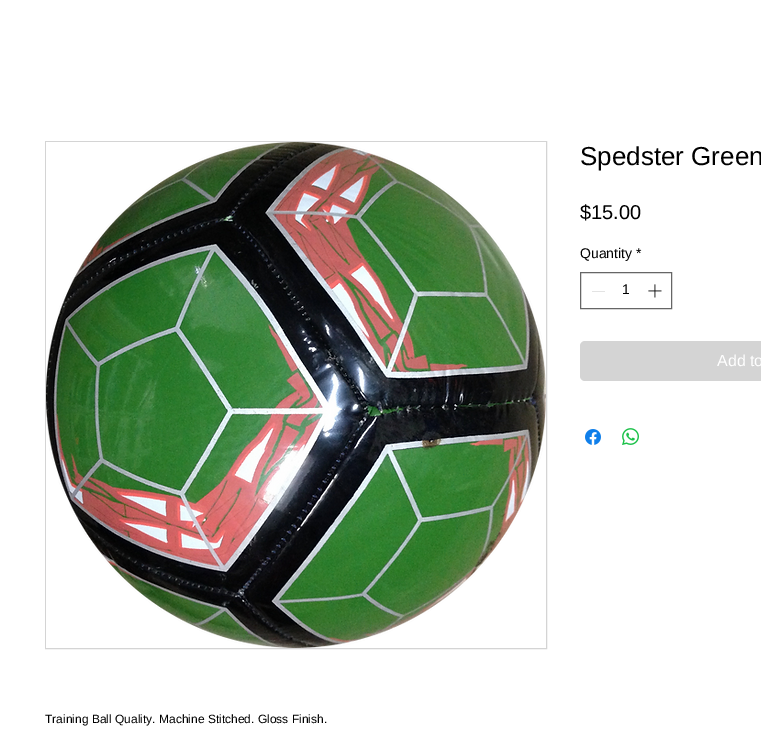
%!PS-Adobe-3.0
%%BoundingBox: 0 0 761 752
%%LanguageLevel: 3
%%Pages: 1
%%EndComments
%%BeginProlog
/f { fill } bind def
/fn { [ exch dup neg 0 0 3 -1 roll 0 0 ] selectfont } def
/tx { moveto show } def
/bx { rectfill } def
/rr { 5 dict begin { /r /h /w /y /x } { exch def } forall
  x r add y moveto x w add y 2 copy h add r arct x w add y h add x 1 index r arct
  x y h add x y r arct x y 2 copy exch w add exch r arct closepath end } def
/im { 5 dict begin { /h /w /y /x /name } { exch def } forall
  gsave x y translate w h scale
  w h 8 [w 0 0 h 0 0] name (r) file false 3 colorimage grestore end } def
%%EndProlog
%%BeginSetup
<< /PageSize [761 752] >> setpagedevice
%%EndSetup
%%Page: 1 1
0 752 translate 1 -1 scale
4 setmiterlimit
1 setgray
0 0 761 752 bx
/LiberationSans-Regular 26 fn
0 setgray
(Spedster Green) 580 165 tx
/LiberationSans-Regular 20 fn
($15.00) 580 219 tx
/LiberationSans-Regular 14 fn
(Quantity *) 580 258 tx
0.4 setgray
580.5 272.5 91 36 rectstroke
0.89 setgray
592 291 13 1 bx
0 setgray
(1) 622 294 tx
(image0.raw) 648 284 14 14 im
0.831 setgray
580 341 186 40 5 rr f
/LiberationSans-Regular 16 fn
1 setgray
(Add to) 717 366 tx
(image1.raw) 585 429 16 16 im
(image2.raw) 622 428 17 17 im
0.831 setgray
45.5 141.5 501 507 rectstroke
(image3.raw) 46 142 500 506 im
/LiberationSans-Regular 12 fn
0 setgray
(Training Ball Quality. Machine Stitched. Gloss Finish.) 45 723 tx
showpage
%%EOF
